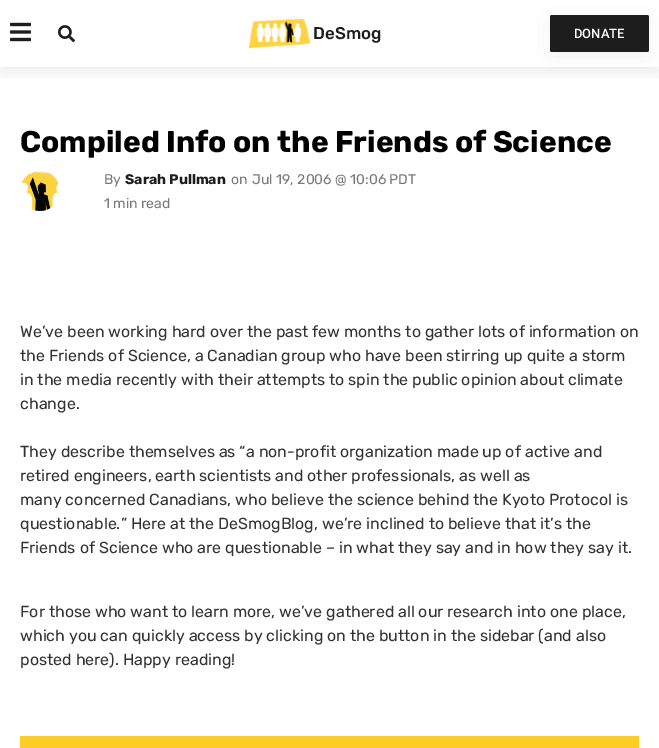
%!PS-Adobe-3.0
%%BoundingBox: 0 0 659 748
%%LanguageLevel: 3
%%Pages: 1
%%EndComments
%%BeginProlog
/f { fill } bind def
/q { gsave } bind def
/Q { grestore } bind def
/fn { [ exch dup neg 0 0 3 -1 roll 0 0 ] selectfont } def
/tx { moveto show } def
/bx { rectfill } def
/al { dup .setfillconstantalpha .setstrokeconstantalpha } def
/rr { 5 dict begin { /r /h /w /y /x } { exch def } forall
  x r add y moveto x w add y 2 copy h add r arct x w add y h add x 1 index r arct
  x y h add x y r arct x y 2 copy exch w add exch r arct closepath end } def
/sh { 12 dict begin { /a /b /q /h /w /y /x } { exch def } forall gsave /was 0 def
  9 -2 -9 { dup b mul 4 div /e exch def 1 sub .425 mul 2.718 exch exp 1 add a .99 .min exch div /now exch def
    1 1 now sub 1 was sub div sub al /was now def
    w h .min e 2 mul add 0 gt { x e sub y e sub w e 2 mul add h e 2 mul add
      q e add b .6 mul add w h .min 2 div e add .min 0 .max rr fill } if } for grestore end } def
/im { 5 dict begin { /h /w /y /x /name } { exch def } forall
  gsave x y translate w h scale
  w h 8 [w 0 0 h 0 0] name (r) file false 3 colorimage grestore end } def
%%EndProlog
%%BeginSetup
<< /PageSize [659 748] /PageUsesTransparency true >> setpagedevice
%%EndSetup
%%Page: 1 1
0 .pushpdf14devicefilter
0 748 translate 1 -1 scale
4 setmiterlimit
1 setgray
0 0 659 748 bx
q
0 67 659 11 rectclip
0 setgray
0 4 659 67 0 10 0.08 sh
Q
(image0.raw) 10 22 21 20 im
(image1.raw) 58 25 17 18 im
(image2.raw) 248 18 64 31 im
/Rubik-Medium 17 fn
0.114 0.114 0.118 setrgbcolor
(DeSmog) 313 39 tx
0 setgray
550 19 99 37 2 10 0.05 sh
0.114 0.114 0.118 setrgbcolor
550 15 99 37 2 rr f
/Roboto-Medium 13 fn
1 setgray
(DONATE) 574 38 tx
/Rubik-Bold 30 fn
0 setgray
(Compiled Info on the Friends of Science) 20 152 tx
(image3.raw) 20 171 39 40 im
/Rubik-Regular 14 fn
0.482 0.475 0.471 setrgbcolor
(By) 104 184 tx
/Rubik-Bold 14 fn
0.114 0.114 0.118 setrgbcolor
(Sarah Pullman) 125 184 tx
/Rubik-Regular 14 fn
0.482 0.475 0.471 setrgbcolor
(on) 231 184 tx
(Jul 19, 2006 @ 10:06 PDT) 252 184 tx
(1 min read) 104 208 tx
/Rubik-Regular 16 fn
0.2 setgray
(We’ve been working hard over the past few months to gather lots of information on) 20 337 tx
(the Friends of Science, a Canadian group who have been stirring up quite a storm) 20 361 tx
(in the media recently with their attempts to spin the public opinion about climate) 20 385 tx
(change.) 20 409 tx
(They describe themselves as “a non-profit organization made up of active and) 20 457 tx
(retired engineers, earth scientists and other professionals, as well as) 20 481 tx
(many concerned Canadians, who believe the science behind the Kyoto Protocol is) 20 505 tx
(questionable.” Here at the DeSmogBlog, we’re inclined to believe that it’s the) 20 529 tx
(Friends of Science who are questionable – in what they say and in how they say it.) 20 553 tx
(For those who want to learn more, we’ve gathered all our research into one place,) 20 617 tx
(which you can quickly access by clicking on the button in the sidebar \(and also) 20 641 tx
(posted here\). Happy reading!) 20 665 tx
0.988 0.8 0.153 setrgbcolor
20 736 619 12 bx
.poppdf14devicefilter showpage
%%EOF
